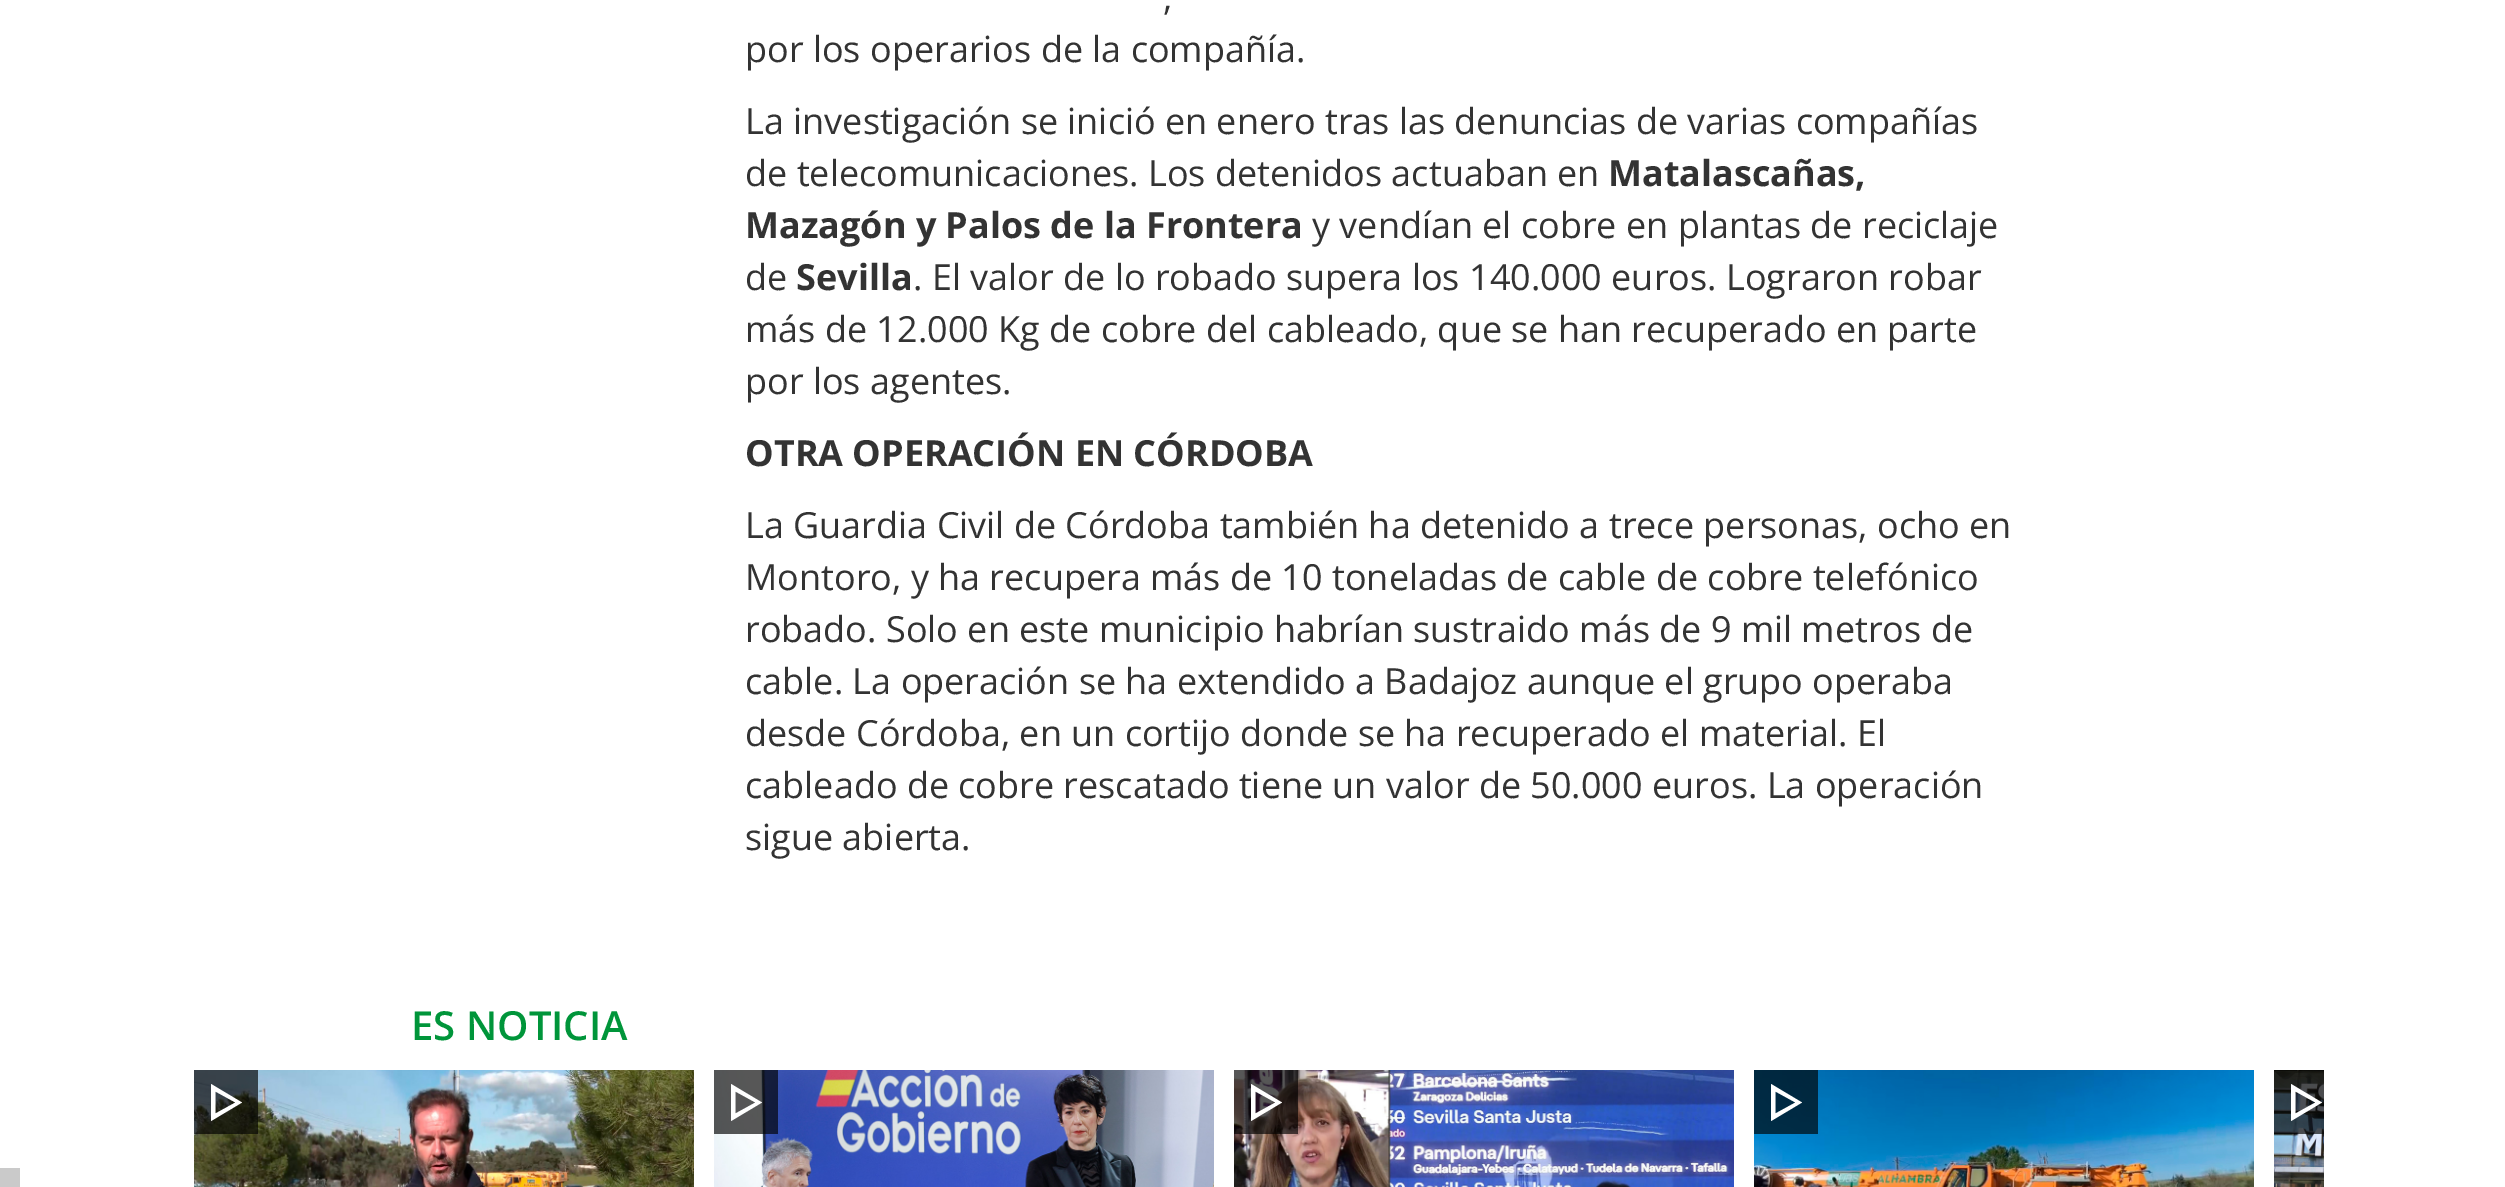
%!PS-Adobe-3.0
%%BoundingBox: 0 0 2505 1187
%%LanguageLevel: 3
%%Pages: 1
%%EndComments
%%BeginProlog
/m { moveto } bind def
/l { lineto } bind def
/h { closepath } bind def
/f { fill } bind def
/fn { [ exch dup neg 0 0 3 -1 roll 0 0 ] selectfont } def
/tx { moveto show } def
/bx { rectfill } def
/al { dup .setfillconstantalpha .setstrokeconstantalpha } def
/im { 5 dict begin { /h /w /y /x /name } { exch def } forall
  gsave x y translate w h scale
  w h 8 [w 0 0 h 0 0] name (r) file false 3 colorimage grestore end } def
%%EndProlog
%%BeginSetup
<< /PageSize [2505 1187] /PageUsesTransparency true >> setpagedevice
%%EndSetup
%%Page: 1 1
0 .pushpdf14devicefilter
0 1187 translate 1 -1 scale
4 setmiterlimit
1 setgray
0 0 2505 1187 bx
/OpenSans-Regular 36 fn
0.2 setgray
(,) 1163 10 tx
(por los operarios de la compañía.) 745 62 tx
(La investigación se inició en enero tras las denuncias de varias compañías) 745 134 tx
(de telecomunicaciones. Los detenidos actuaban en) 745 186 tx
/OpenSans-Bold 36 fn
(Matalascañas,) 1608 186 tx
(Mazagón y Palos de la Frontera) 745 238 tx
/OpenSans-Regular 36 fn
(y vendían el cobre en plantas de reciclaje) 1312 238 tx
(de) 745 290 tx
/OpenSans-Bold 36 fn
(Sevilla) 796 290 tx
/OpenSans-Regular 36 fn
(. El valor de lo robado supera los 140.000 euros. Lograron robar) 913 290 tx
(más de 12.000 Kg de cobre del cableado, que se han recuperado en parte) 745 342 tx
(por los agentes.) 745 394 tx
/OpenSans-Bold 36 fn
(OTRA OPERACIÓN EN CÓRDOBA) 745 466 tx
/OpenSans-Regular 36 fn
(La Guardia Civil de Córdoba también ha detenido a trece personas, ocho en) 745 538 tx
(Montoro, y ha recupera más de 10 toneladas de cable de cobre telefónico) 745 590 tx
(robado. Solo en este municipio habrían sustraido más de 9 mil metros de) 745 642 tx
(cable. La operación se ha extendido a Badajoz aunque el grupo operaba) 745 694 tx
(desde Córdoba, en un cortijo donde se ha recuperado el material. El) 745 746 tx
(cableado de cobre rescatado tiene un valor de 50.000 euros. La operación) 745 798 tx
(sigue abierta.) 745 850 tx
/OpenSans-SemiBold 40 fn
0 0.584 0.227 setrgbcolor
(ES NOTICIA) 411 1040 tx
(image0.raw) 194 1070 500 117 im
0.66 al
0 setgray
194 1070 64 64 bx
1 al
1 setgray
211 1084 m 211 1121 l 242 1102.5 l h 215.5 1091.5 m 235.5 1102.5 l 215.5 1113.5 l h f
(image1.raw) 714 1070 500 117 im
0.66 al
0 setgray
714 1070 64 64 bx
1 al
1 setgray
731 1084 m 731 1121 l 762 1102.5 l h 735.5 1091.5 m 755.5 1102.5 l 735.5 1113.5 l h f
(image2.raw) 1234 1070 500 117 im
0.66 al
0 setgray
1234 1070 64 64 bx
1 al
1 setgray
1251 1084 m 1251 1121 l 1282 1102.5 l h 1255.5 1091.5 m 1275.5 1102.5 l 1255.5 1113.5 l h f
(image3.raw) 1754 1070 500 117 im
0.66 al
0 setgray
1754 1070 64 64 bx
1 al
1 setgray
1771 1084 m 1771 1121 l 1802 1102.5 l h 1775.5 1091.5 m 1795.5 1102.5 l 1775.5 1113.5 l h f
(image4.raw) 2274 1070 50 117 im
0.66 al
0 setgray
2274 1070 50 64 bx
1 al
1 setgray
2291 1084 m 2291 1121 l 2322 1102.5 l h 2295.5 1091.5 m 2315.5 1102.5 l 2295.5 1113.5 l h f
0.792 setgray
0 1168 20 19 bx
.poppdf14devicefilter showpage
%%EOF
